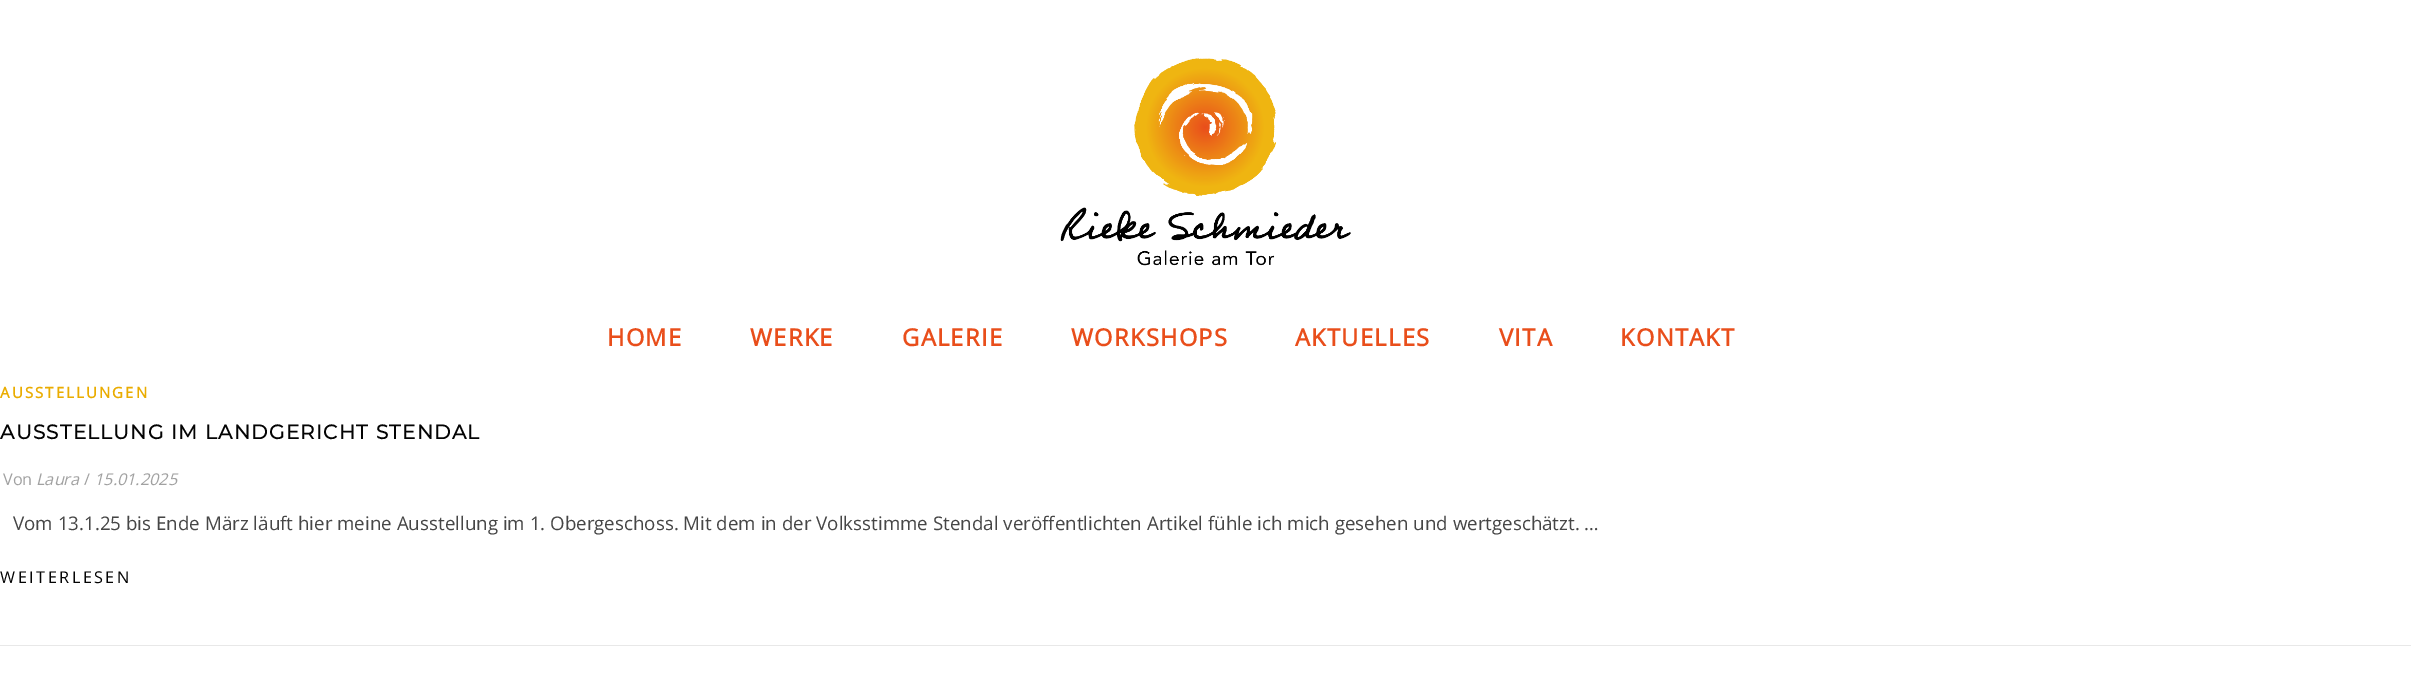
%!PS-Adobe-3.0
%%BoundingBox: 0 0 2411 687
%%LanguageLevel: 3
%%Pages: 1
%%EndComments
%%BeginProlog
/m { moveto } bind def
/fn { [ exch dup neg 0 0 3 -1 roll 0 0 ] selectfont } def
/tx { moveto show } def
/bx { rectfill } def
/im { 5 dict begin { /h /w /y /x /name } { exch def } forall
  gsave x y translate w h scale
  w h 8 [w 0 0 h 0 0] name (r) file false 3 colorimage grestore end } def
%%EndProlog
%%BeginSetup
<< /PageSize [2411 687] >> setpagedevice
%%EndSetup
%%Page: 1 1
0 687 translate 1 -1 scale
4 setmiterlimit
1 setgray
0 0 2411 687 bx
(image0.raw) 1060 58 291 208 im
/OpenSans-Bold 23.75 fn
0.914 0.306 0.106 setrgbcolor
607 346 m 1.25 0 (HOME) ashow
750 346 m 1.25 0 (WERKE) ashow
902 346 m 1.25 0 (GALERIE) ashow
1071 346 m 1.25 0 (WORKSHOPS) ashow
1295 346 m 1.25 0 (AKTUELLES) ashow
1499 346 m 1.25 0 (VITA) ashow
1620 346 m 1.25 0 (KONTAKT) ashow
0.91 setgray
0 645 2411 1 bx
/OpenSans-Bold 15 fn
0.918 0.675 0 setrgbcolor
0 398 m 2.1 0 (AUSSTELLUNGEN) ashow
/Montserrat-Bold 20 fn
0.012 setgray
0 439 m 1.25 0 (AUSSTELLUNG IM LANDGERICHT STENDAL) ashow
/OpenSans-Regular 16.25 fn
0.631 setgray
(Von) 3 485 tx
/OpenSans-Italic 16.25 fn
(Laura) 36 485 tx
/OpenSans-Regular 16.25 fn
(/) 84 485 tx
/OpenSans-Italic 16.25 fn
(15.01.2025) 94 485 tx
/OpenSans-Regular 18.75 fn
0.275 setgray
(Vom 13.1.25 bis Ende März läuft hier meine Ausstellung im 1. Obergeschoss. Mit dem in der Volksstimme Stendal veröffentlichten Artikel fühle ich mich gesehen und wertgeschätzt. …) 13 530 tx
/OpenSans-Regular 16.25 fn
0.012 setgray
0 583 m 2.5 0 (WEITERLESEN) ashow
showpage
%%EOF
